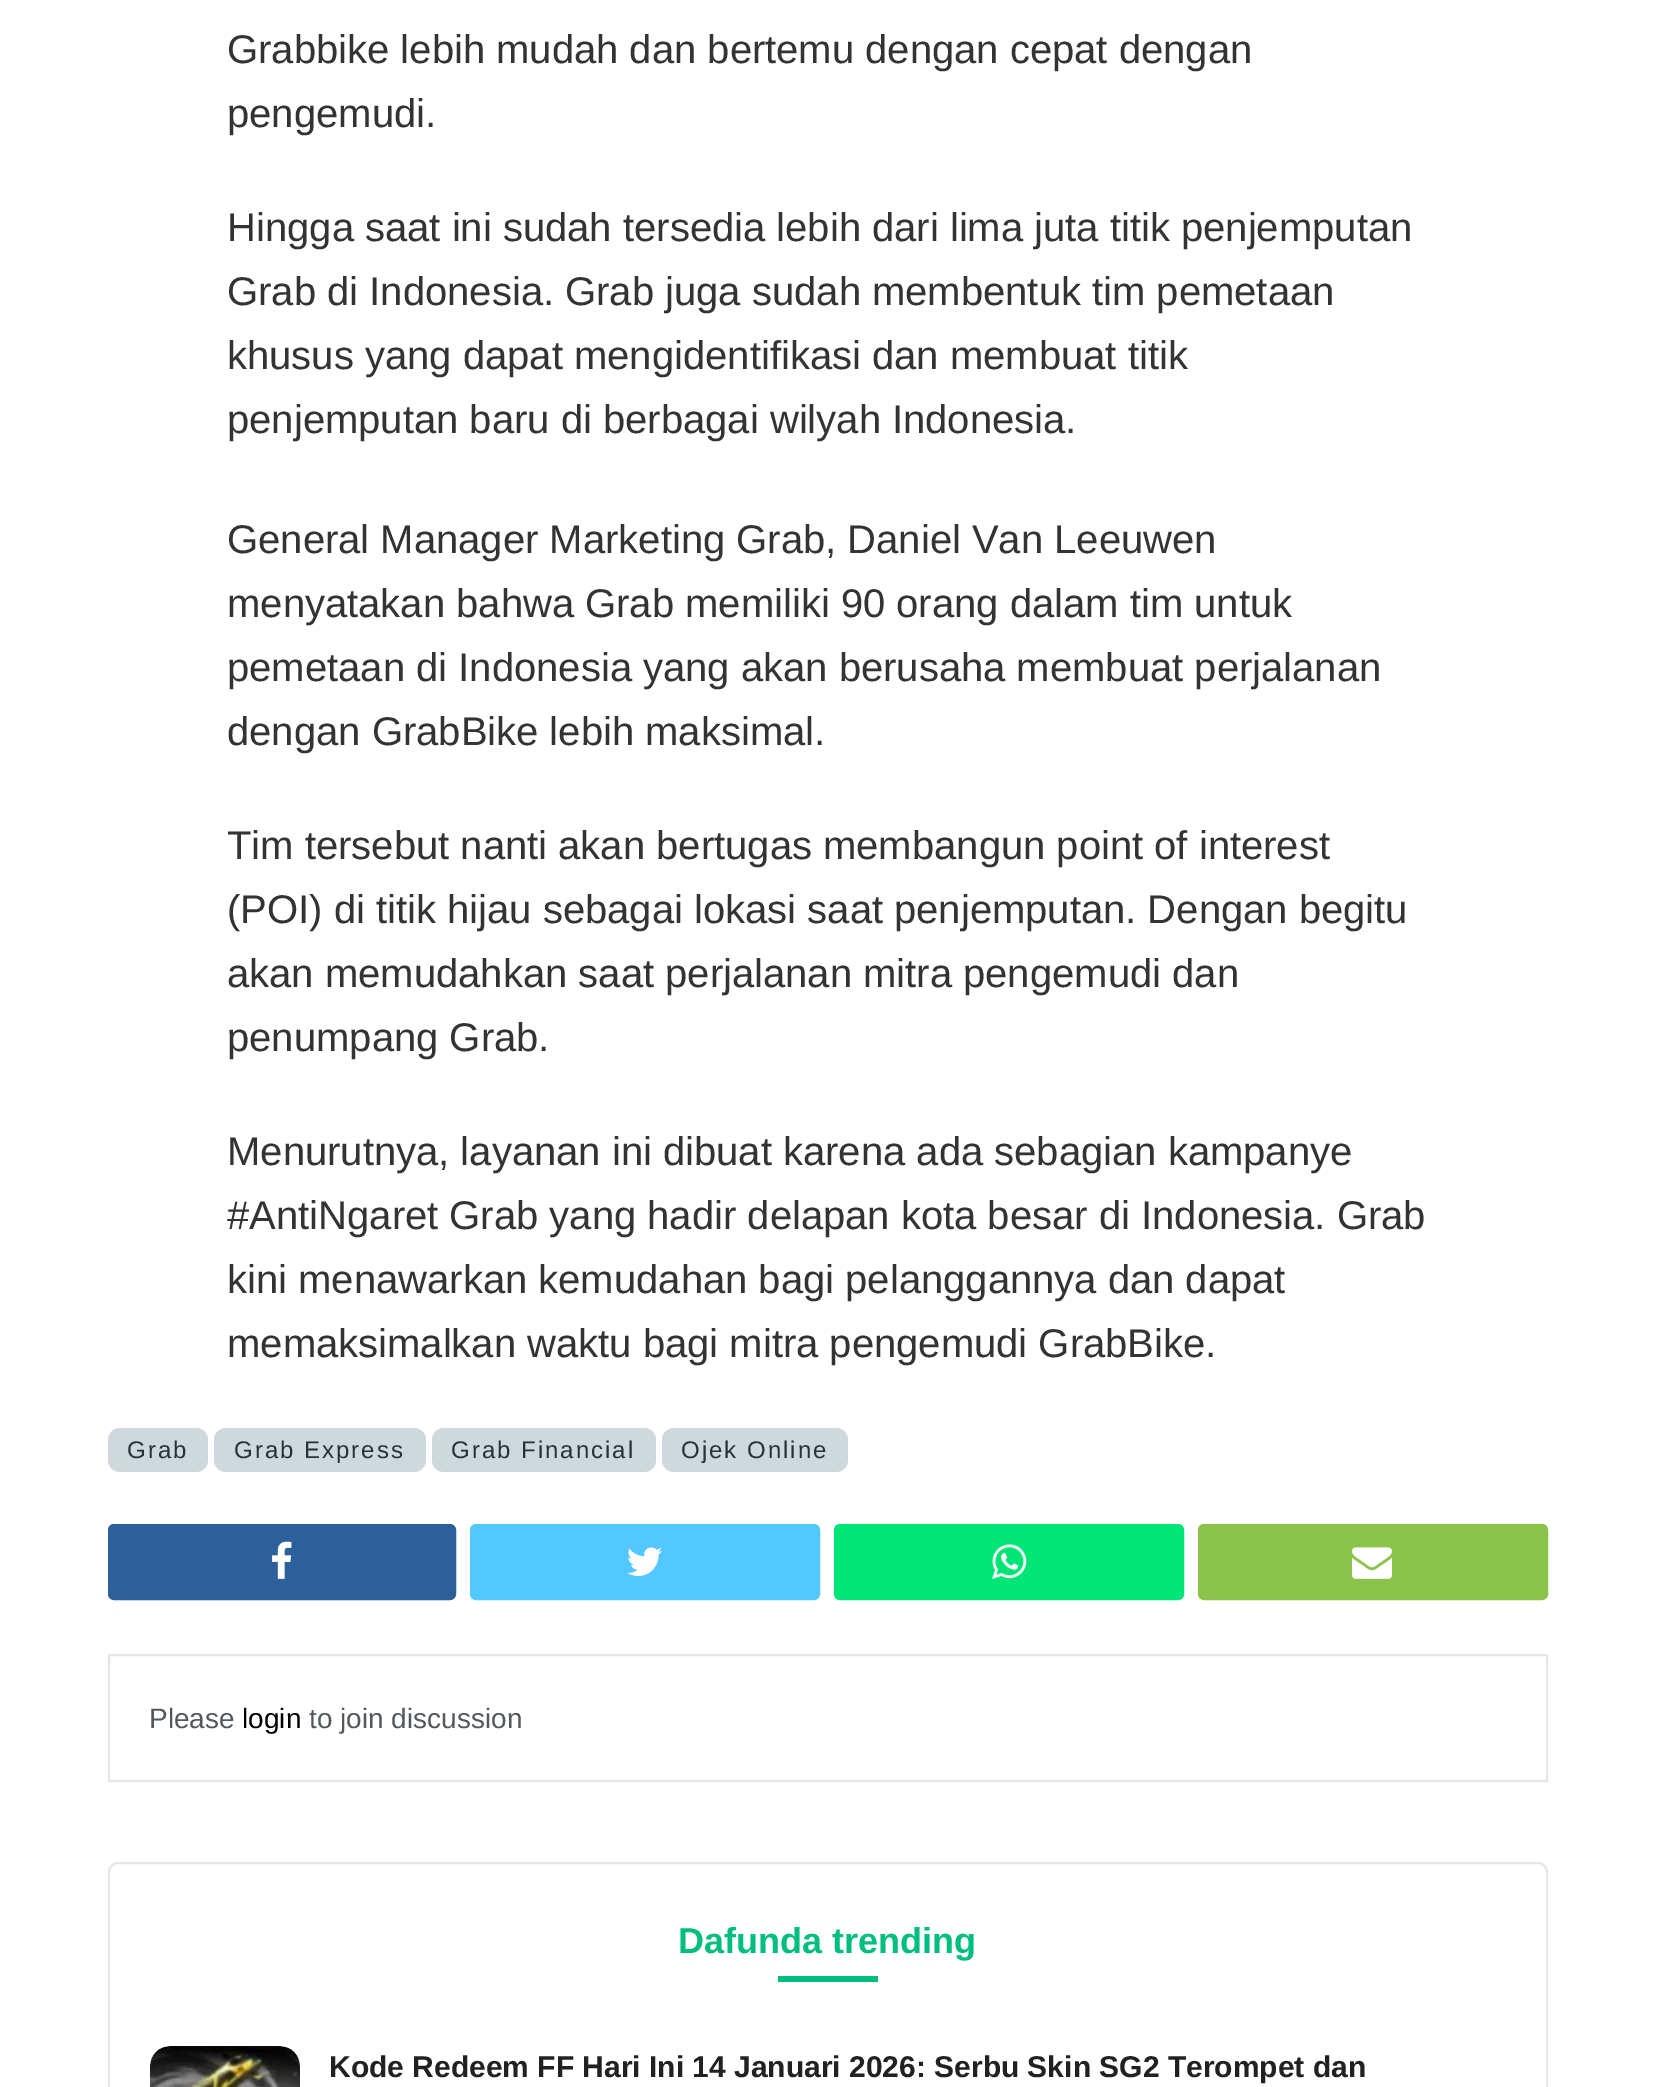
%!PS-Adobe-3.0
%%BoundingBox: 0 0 1654 2087
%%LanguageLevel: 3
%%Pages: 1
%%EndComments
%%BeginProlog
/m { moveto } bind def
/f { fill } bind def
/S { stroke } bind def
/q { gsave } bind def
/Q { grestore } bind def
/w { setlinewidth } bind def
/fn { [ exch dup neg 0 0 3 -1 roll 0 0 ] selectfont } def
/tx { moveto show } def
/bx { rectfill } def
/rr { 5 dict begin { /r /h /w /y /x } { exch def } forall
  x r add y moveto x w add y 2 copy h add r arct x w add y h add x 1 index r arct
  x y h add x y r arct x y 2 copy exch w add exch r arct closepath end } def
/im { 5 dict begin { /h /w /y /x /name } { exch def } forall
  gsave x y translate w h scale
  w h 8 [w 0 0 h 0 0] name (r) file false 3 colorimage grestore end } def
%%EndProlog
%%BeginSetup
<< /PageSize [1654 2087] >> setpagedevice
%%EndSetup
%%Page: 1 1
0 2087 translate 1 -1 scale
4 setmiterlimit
1 setgray
0 0 1654 2087 bx
/LiberationSans-Regular 40 fn
0.2 setgray
(Grabbike lebih mudah dan bertemu dengan cepat dengan) 227 63 tx
(pengemudi.) 227 127 tx
(Hingga saat ini sudah tersedia lebih dari lima juta titik penjemputan) 227 241 tx
(Grab di Indonesia. Grab juga sudah membentuk tim pemetaan) 227 305 tx
(khusus yang dapat mengidentifikasi dan membuat titik) 227 369 tx
(penjemputan baru di berbagai wilyah Indonesia.) 227 433 tx
(General Manager Marketing Grab, Daniel Van Leeuwen) 227 553 tx
(menyatakan bahwa Grab memiliki 90 orang dalam tim untuk) 227 617 tx
(pemetaan di Indonesia yang akan berusaha membuat perjalanan) 227 681 tx
(dengan GrabBike lebih maksimal.) 227 745 tx
(Tim tersebut nanti akan bertugas membangun point of interest) 227 859 tx
(\(POI\) di titik hijau sebagai lokasi saat penjemputan. Dengan begitu) 227 923 tx
(akan memudahkan saat perjalanan mitra pengemudi dan) 227 987 tx
(penumpang Grab.) 227 1051 tx
(Menurutnya, layanan ini dibuat karena ada sebagian kampanye) 227 1165 tx
(#AntiNgaret Grab yang hadir delapan kota besar di Indonesia. Grab) 227 1229 tx
(kini menawarkan kemudahan bagi pelanggannya dan dapat) 227 1293 tx
(memaksimalkan waktu bagi mitra pengemudi GrabBike.) 227 1357 tx
0.812 0.847 0.863 setrgbcolor
108 1428 100 44 12 rr f
/LiberationSans-Regular 24 fn
0.149 0.196 0.22 setrgbcolor
127 1458 m 2 0 (Grab) ashow
0.812 0.847 0.863 setrgbcolor
214 1428 212 44 12 rr f
0.149 0.196 0.22 setrgbcolor
234 1458 m 2 0 (Grab Express) ashow
0.812 0.847 0.863 setrgbcolor
432 1428 224 44 12 rr f
0.149 0.196 0.22 setrgbcolor
451 1458 m 2 0 (Grab Financial) ashow
0.812 0.847 0.863 setrgbcolor
662 1428 186 44 12 rr f
0.149 0.196 0.22 setrgbcolor
681 1458 m 2 0 (Ojek Online) ashow
0.176 0.373 0.604 setrgbcolor
109 1525 346 74 5 rr q f Q
2 w
S
(image0.raw) 272 1541 20 38 im
0.325 0.78 1 setrgbcolor
471 1525 348 74 5 rr q f Q
S
(image1.raw) 627 1547 35 29 im
0 0.902 0.463 setrgbcolor
835 1525 348 74 5 rr q f Q
S
(image2.raw) 992 1544 35 35 im
0.545 0.765 0.29 setrgbcolor
1199 1525 348 74 5 rr q f Q
S
(image3.raw) 1352 1547 40 32 im
0.902 setgray
109 1655 1438 126 rectstroke
/LiberationSans-Regular 28 fn
0.325 0.345 0.361 setrgbcolor
(Please) 149 1728 tx
0 setgray
(login) 242 1728 tx
0.325 0.345 0.361 setrgbcolor
(to join discussion) 309 1728 tx
0.902 setgray
109 1863 1438 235 9 rr S
/LiberationSans-Bold 36 fn
0 0.749 0.49 setrgbcolor
(Dafunda trending) 678 1953 tx
778 1976 100 6 bx
0.965 setgray
150 2046 150 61 20 rr f
(image4.raw) 150 2046 150 41 im
/LiberationSans-Bold 30 fn
0.129 setgray
(Kode Redeem FF Hari Ini 14 Januari 2026: Serbu Skin SG2 Terompet dan) 329 2077 tx
showpage
%%EOF
